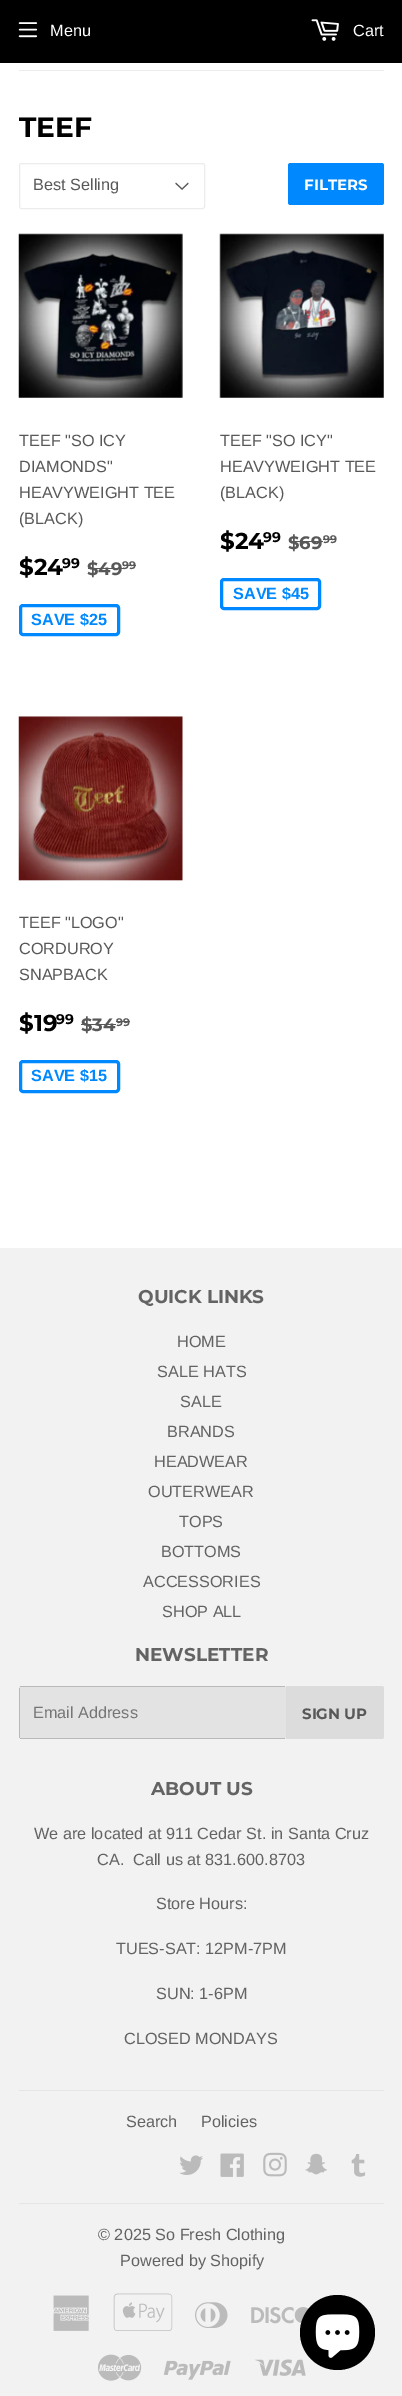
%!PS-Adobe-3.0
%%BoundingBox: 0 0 402 2396
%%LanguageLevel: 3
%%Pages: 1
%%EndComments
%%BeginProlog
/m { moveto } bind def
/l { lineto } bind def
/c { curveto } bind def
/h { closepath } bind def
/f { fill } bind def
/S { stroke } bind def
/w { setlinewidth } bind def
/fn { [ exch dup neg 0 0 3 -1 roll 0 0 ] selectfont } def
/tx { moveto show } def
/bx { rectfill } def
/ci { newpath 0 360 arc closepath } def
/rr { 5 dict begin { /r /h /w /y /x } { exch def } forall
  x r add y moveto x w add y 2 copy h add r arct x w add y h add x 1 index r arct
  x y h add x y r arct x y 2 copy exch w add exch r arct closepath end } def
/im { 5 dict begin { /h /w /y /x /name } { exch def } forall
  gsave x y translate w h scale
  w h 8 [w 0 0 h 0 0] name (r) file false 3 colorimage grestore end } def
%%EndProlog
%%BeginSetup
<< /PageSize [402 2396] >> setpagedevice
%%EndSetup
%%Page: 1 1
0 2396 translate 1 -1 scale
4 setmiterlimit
1 setgray
0 0 402 2396 bx
0 setgray
0 0 402 63 bx
(image0.raw) 18 22 20 16 im
/LiberationSans-Regular 16.25 fn
1 setgray
(Menu) 50 36 tx
(image1.raw) 311 19 28 22 im
(Cart) 353 36 tx
0.925 setgray
19 70 365 1 bx
/Montserrat-Thin 28 fn
0 setgray
(TEEF) 19 137 tx
(image2.raw) 175 182 14 8 im
0.925 setgray
19.5 163.5 185 45 2 rr S
/LiberationSans-Regular 16.25 fn
0.345 setgray
(Best Selling) 33 190 tx
0 0.537 1 setrgbcolor
288 163 96 42 2.5 rr f
/Montserrat-Thin 15 fn
1 setgray
(FILTERS) 304 190 tx
(image3.raw) 18 233 165 165 im
/LiberationSans-Regular 16.25 fn
0.345 setgray
(TEEF "SO ICY) 19 446 tx
(DIAMONDS") 19 472 tx
(HEAVYWEIGHT TEE) 19 498 tx
(\(BLACK\)) 19 524 tx
/Montserrat-Thin 23 fn
0 setgray
($24) 19 575 tx
/Montserrat-Thin 14 fn
(99) 62 568 tx
/Montserrat-Thin 18 fn
0.345 setgray
($49) 87 575 tx
88 568 35 1 bx
/Montserrat-Thin 11 fn
(99) 122 569 tx
123 565 13 1 bx
0 0.537 1 setrgbcolor
3 w
20.5 605.5 98 29 2.5 rr S
/LiberationSans-Bold 16.25 fn
(SAVE $25) 31 625 tx
(image4.raw) 219 233 165 165 im
/LiberationSans-Regular 16.25 fn
0.345 setgray
(TEEF "SO ICY") 220 446 tx
(HEAVYWEIGHT TEE) 220 472 tx
(\(BLACK\)) 220 498 tx
/Montserrat-Thin 23 fn
0 setgray
($24) 220 549 tx
/Montserrat-Thin 14 fn
(99) 263 542 tx
/Montserrat-Thin 18 fn
0.345 setgray
($69) 288 549 tx
289 541 34 1 bx
/Montserrat-Thin 11 fn
(99) 323 543 tx
323 539 13 1 bx
0 0.537 1 setrgbcolor
221.5 579.5 98 29 2.5 rr S
/LiberationSans-Bold 16.25 fn
(SAVE $45) 233 599 tx
(image5.raw) 18 716 165 165 im
/LiberationSans-Regular 16.25 fn
0.345 setgray
(TEEF "LOGO") 19 928 tx
(CORDUROY) 19 954 tx
(SNAPBACK) 19 980 tx
/Montserrat-Thin 23 fn
0 setgray
($19) 19 1031 tx
/Montserrat-Thin 14 fn
(99) 56 1024 tx
/Montserrat-Thin 18 fn
0.345 setgray
($34) 81 1031 tx
81 1024 35 1 bx
/Montserrat-Thin 11 fn
(99) 116 1026 tx
116 1021 14 1 bx
0 0.537 1 setrgbcolor
20.5 1061.5 98 30 2.5 rr S
/LiberationSans-Bold 16.25 fn
(SAVE $15) 31 1081 tx
0.949 setgray
0 1248 402 1148 bx
/Montserrat-Thin 18.5 fn
0.388 setgray
(QUICK LINKS) 138 1303 tx
/LiberationSans-Regular 16.25 fn
(HOME) 177 1347 tx
(SALE HATS) 157 1377 tx
(SALE) 180 1407 tx
(BRANDS) 167 1437 tx
(HEADWEAR) 154 1467 tx
(OUTERWEAR) 148 1497 tx
(TOPS) 179 1527 tx
(BOTTOMS) 161 1557 tx
(ACCESSORIES) 143 1587 tx
(SHOP ALL) 162 1617 tx
/Montserrat-Thin 18.5 fn
(NEWSLETTER) 135 1661 tx
0.89 setgray
19 1686 267 53 2.5 rr f
0.725 setgray
20 1686 265 1 bx
20 1738 265 1 bx
19 1688 1 50 bx
/LiberationSans-Regular 16.25 fn
0.459 setgray
(Email Address) 33 1718 tx
0.863 setgray
286 1686 m 381.5 1686 l 383 1686 384 1687 384 1688.5 c 384 1736.5 l 384 1738 383 1739 381.5 1739 c 286 1739 l h f
/Montserrat-Thin 15 fn
0.345 setgray
(SIGN UP) 302 1719 tx
/Montserrat-Thin 18.5 fn
0.388 setgray
(ABOUT US) 151 1795 tx
/LiberationSans-Regular 16.25 fn
(We are located at 911 Cedar St. in Santa Cruz) 34 1839 tx
(CA.  Call us at 831.600.8703) 97 1865 tx
(Store Hours:) 156 1909 tx
(TUES-SAT: 12PM-7PM) 116 1954 tx
(SUN: 1-6PM) 156 1999 tx
(CLOSED MONDAYS) 124 2044 tx
0.898 setgray
19 2090 365 1 bx
0.388 setgray
(Search) 126 2127 tx
(Policies) 201 2127 tx
(image6.raw) 179 2155 24 20 im
(image7.raw) 220 2153 24 24 im
(image8.raw) 263 2152 24 25 im
(image9.raw) 305 2153 22 22 im
(image10.raw) 351 2154 15 23 im
0.898 setgray
19 2203 365 1 bx
0.388 setgray
(© 2025 So Fresh Clothing) 98 2240 tx
(Powered by Shopify) 120 2266 tx
(image11.raw) 53 2295 36 36 im
(image12.raw) 113 2293 60 38 im
(image13.raw) 195 2302 33 26 im
(image14.raw) 251 2307 58 17 im
(image15.raw) 98 2354 44 27 im
(image16.raw) 163 2360 68 20 im
(image17.raw) 255 2359 51 17 im
0 setgray
337.5 2332.5 37.5 ci f
(image18.raw) 315 2314 45 44 im
showpage
%%EOF
